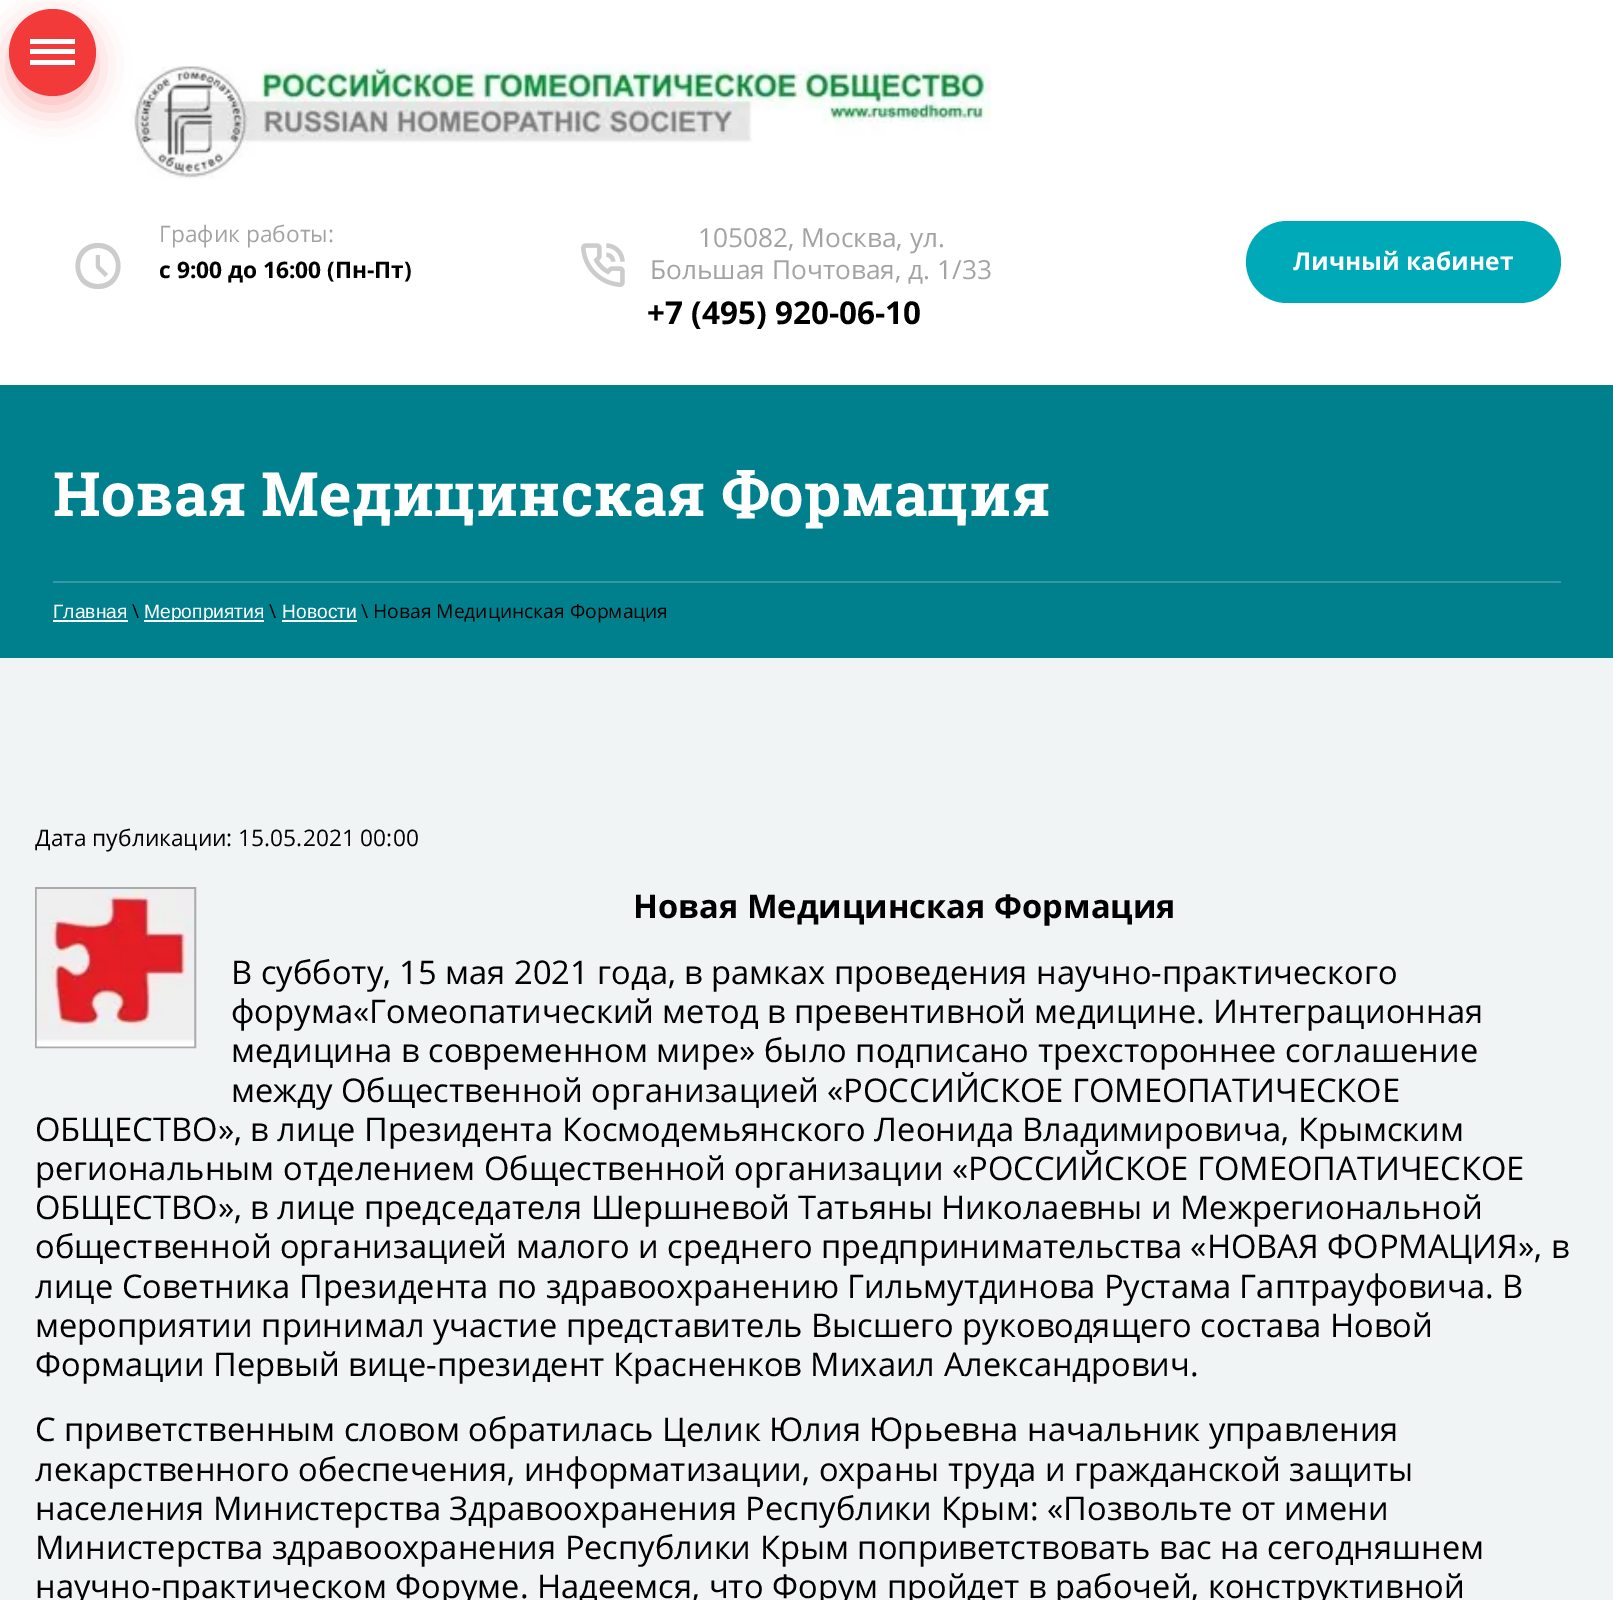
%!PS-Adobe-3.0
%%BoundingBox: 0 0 1613 1600
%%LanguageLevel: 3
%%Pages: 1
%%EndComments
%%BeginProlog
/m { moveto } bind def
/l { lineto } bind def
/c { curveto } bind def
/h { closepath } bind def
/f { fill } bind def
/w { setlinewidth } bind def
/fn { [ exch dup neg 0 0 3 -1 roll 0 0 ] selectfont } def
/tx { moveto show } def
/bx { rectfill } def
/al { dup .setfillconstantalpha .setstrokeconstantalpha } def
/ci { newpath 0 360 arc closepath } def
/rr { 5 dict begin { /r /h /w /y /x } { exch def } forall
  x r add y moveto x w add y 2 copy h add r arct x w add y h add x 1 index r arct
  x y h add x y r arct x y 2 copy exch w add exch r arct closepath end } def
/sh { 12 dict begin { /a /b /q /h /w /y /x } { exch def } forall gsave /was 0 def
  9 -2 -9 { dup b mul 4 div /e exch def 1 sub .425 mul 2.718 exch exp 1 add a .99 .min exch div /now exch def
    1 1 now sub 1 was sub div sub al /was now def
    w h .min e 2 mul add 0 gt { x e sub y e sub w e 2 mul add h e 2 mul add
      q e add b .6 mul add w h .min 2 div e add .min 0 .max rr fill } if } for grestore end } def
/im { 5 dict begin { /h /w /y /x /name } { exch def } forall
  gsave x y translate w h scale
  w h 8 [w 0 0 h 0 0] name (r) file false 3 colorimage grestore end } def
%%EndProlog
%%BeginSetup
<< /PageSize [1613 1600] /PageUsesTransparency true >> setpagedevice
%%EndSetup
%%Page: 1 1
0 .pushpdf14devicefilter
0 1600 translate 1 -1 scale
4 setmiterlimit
0.941 0.957 0.961 setrgbcolor
0 0 1613 1600 bx
1 setgray
0 0 1613 385 bx
(image0.raw) 130 64 861 115 im
0.949 0.227 0.227 setrgbcolor
9 21 87 88 43.5 16 0.35 sh
52.5 52.5 43.5 ci f
1 setgray
30 39 45 5 bx
30 49 45 5 bx
30 60 45 5 bx
0.8 setgray
98 289 m 68 289 68 243 98 243 c 128 243 128 289 98 289 c h 98 248 m 74 248 74 284 98 284 c 122 284 122 248 98 248 c h 97 269 m 95 267 96 258 96 255 c 100 255 l 100 266 l 108 274 l 105 277 l h eofill
/OpenSans-Regular 22.75 fn
0.639 setgray
(График работы:) 159 242 tx
/OpenSans-Bold 22.75 fn
0 setgray
(с 9:00 до 16:00 \(Пн-Пт\)) 159 278 tx
(image1.raw) 581 243 44 44 im
/OpenSans-Regular 26.25 fn
0.639 setgray
(105082, Москва, ул.) 698 247 tx
(Большая Почтовая, д. 1/33) 650 279 tx
/OpenSans-Bold 31.5 fn
0 setgray
(+7 \(495\) 920-06-10) 647 324 tx
0 0.663 0.722 setrgbcolor
1246 221 315 82 41 rr f
/OpenSans-Bold 24.5 fn
1 setgray
(Личный кабинет) 1293 270 tx
0 0.502 0.549 setrgbcolor
0 385 1613 273 bx
/RobotoSlab-Bold 61.25 fn
1 setgray
(Новая Медицинская Формация) 53 516 tx
0.2 0.6 0.639 setrgbcolor
53 581 1508 2 bx
/LiberationSans-Regular 19.25 fn
1 setgray
(Главная) 53 618 tx
53 620 75 2 bx
/OpenSans-Regular 19.25 fn
0 setgray
(\\) 132 618 tx
1 setgray
144 620 120 2 bx
/LiberationSans-Regular 19.25 fn
(Мероприятия) 144 618 tx
/OpenSans-Regular 19.25 fn
0 setgray
(\\) 269 618 tx
/LiberationSans-Regular 19.25 fn
1 setgray
(Новости) 282 618 tx
282 620 75 2 bx
/OpenSans-Regular 19.25 fn
0 setgray
(\\ Новая Медицинская Формация) 361 618 tx
/OpenSans-Regular 22.75 fn
(Дата публикации: 15.05.2021 00:00) 35 846 tx
0.667 setgray
2 w
36 888 159 159 rectstroke
(image2.raw) 36 889 159 158 im
/OpenSans-Bold 32.65 fn
0 setgray
(Новая Медицинская Формация) 633 918 tx
/OpenSans-Regular 32.65 fn
(В субботу, 15 мая 2021 года, в рамках проведения научно-практического) 231 984 tx
(форума«Гомеопатический метод в превентивной медицине. Интеграционная) 231 1023 tx
(медицина в современном мире» было подписано трехстороннее соглашение) 231 1062 tx
(между Общественной организацией «РОССИЙСКОЕ ГОМЕОПАТИЧЕСКОЕ) 231 1102 tx
(ОБЩЕСТВО», в лице Президента Космодемьянского Леонида Владимировича, Крымским) 35 1141 tx
(региональным отделением Общественной организации «РОССИЙСКОЕ ГОМЕОПАТИЧЕСКОЕ) 35 1180 tx
(ОБЩЕСТВО», в лице председателя Шершневой Татьяны Николаевны и Межрегиональной) 35 1219 tx
(общественной организацией малого и среднего предпринимательства «НОВАЯ ФОРМАЦИЯ», в) 35 1258 tx
(лице Советника Президента по здравоохранению Гильмутдинова Рустама Гаптрауфовича. В) 35 1298 tx
(мероприятии принимал участие представитель Высшего руководящего состава Новой) 35 1337 tx
(Формации Первый вице-президент Красненков Михаил Александрович.) 35 1376 tx
(С приветственным словом обратилась Целик Юлия Юрьевна начальник управления) 35 1441 tx
(лекарственного обеспечения, информатизации, охраны труда и гражданской защиты) 35 1481 tx
(населения Министерства Здравоохранения Республики Крым: «Позвольте от имени) 35 1520 tx
(Министерства здравоохранения Республики Крым поприветствовать вас на сегодняшнем) 35 1559 tx
(научно-практическом Форуме. Надеемся, что Форум пройдет в рабочей, конструктивной) 35 1598 tx
.poppdf14devicefilter showpage
%%EOF
